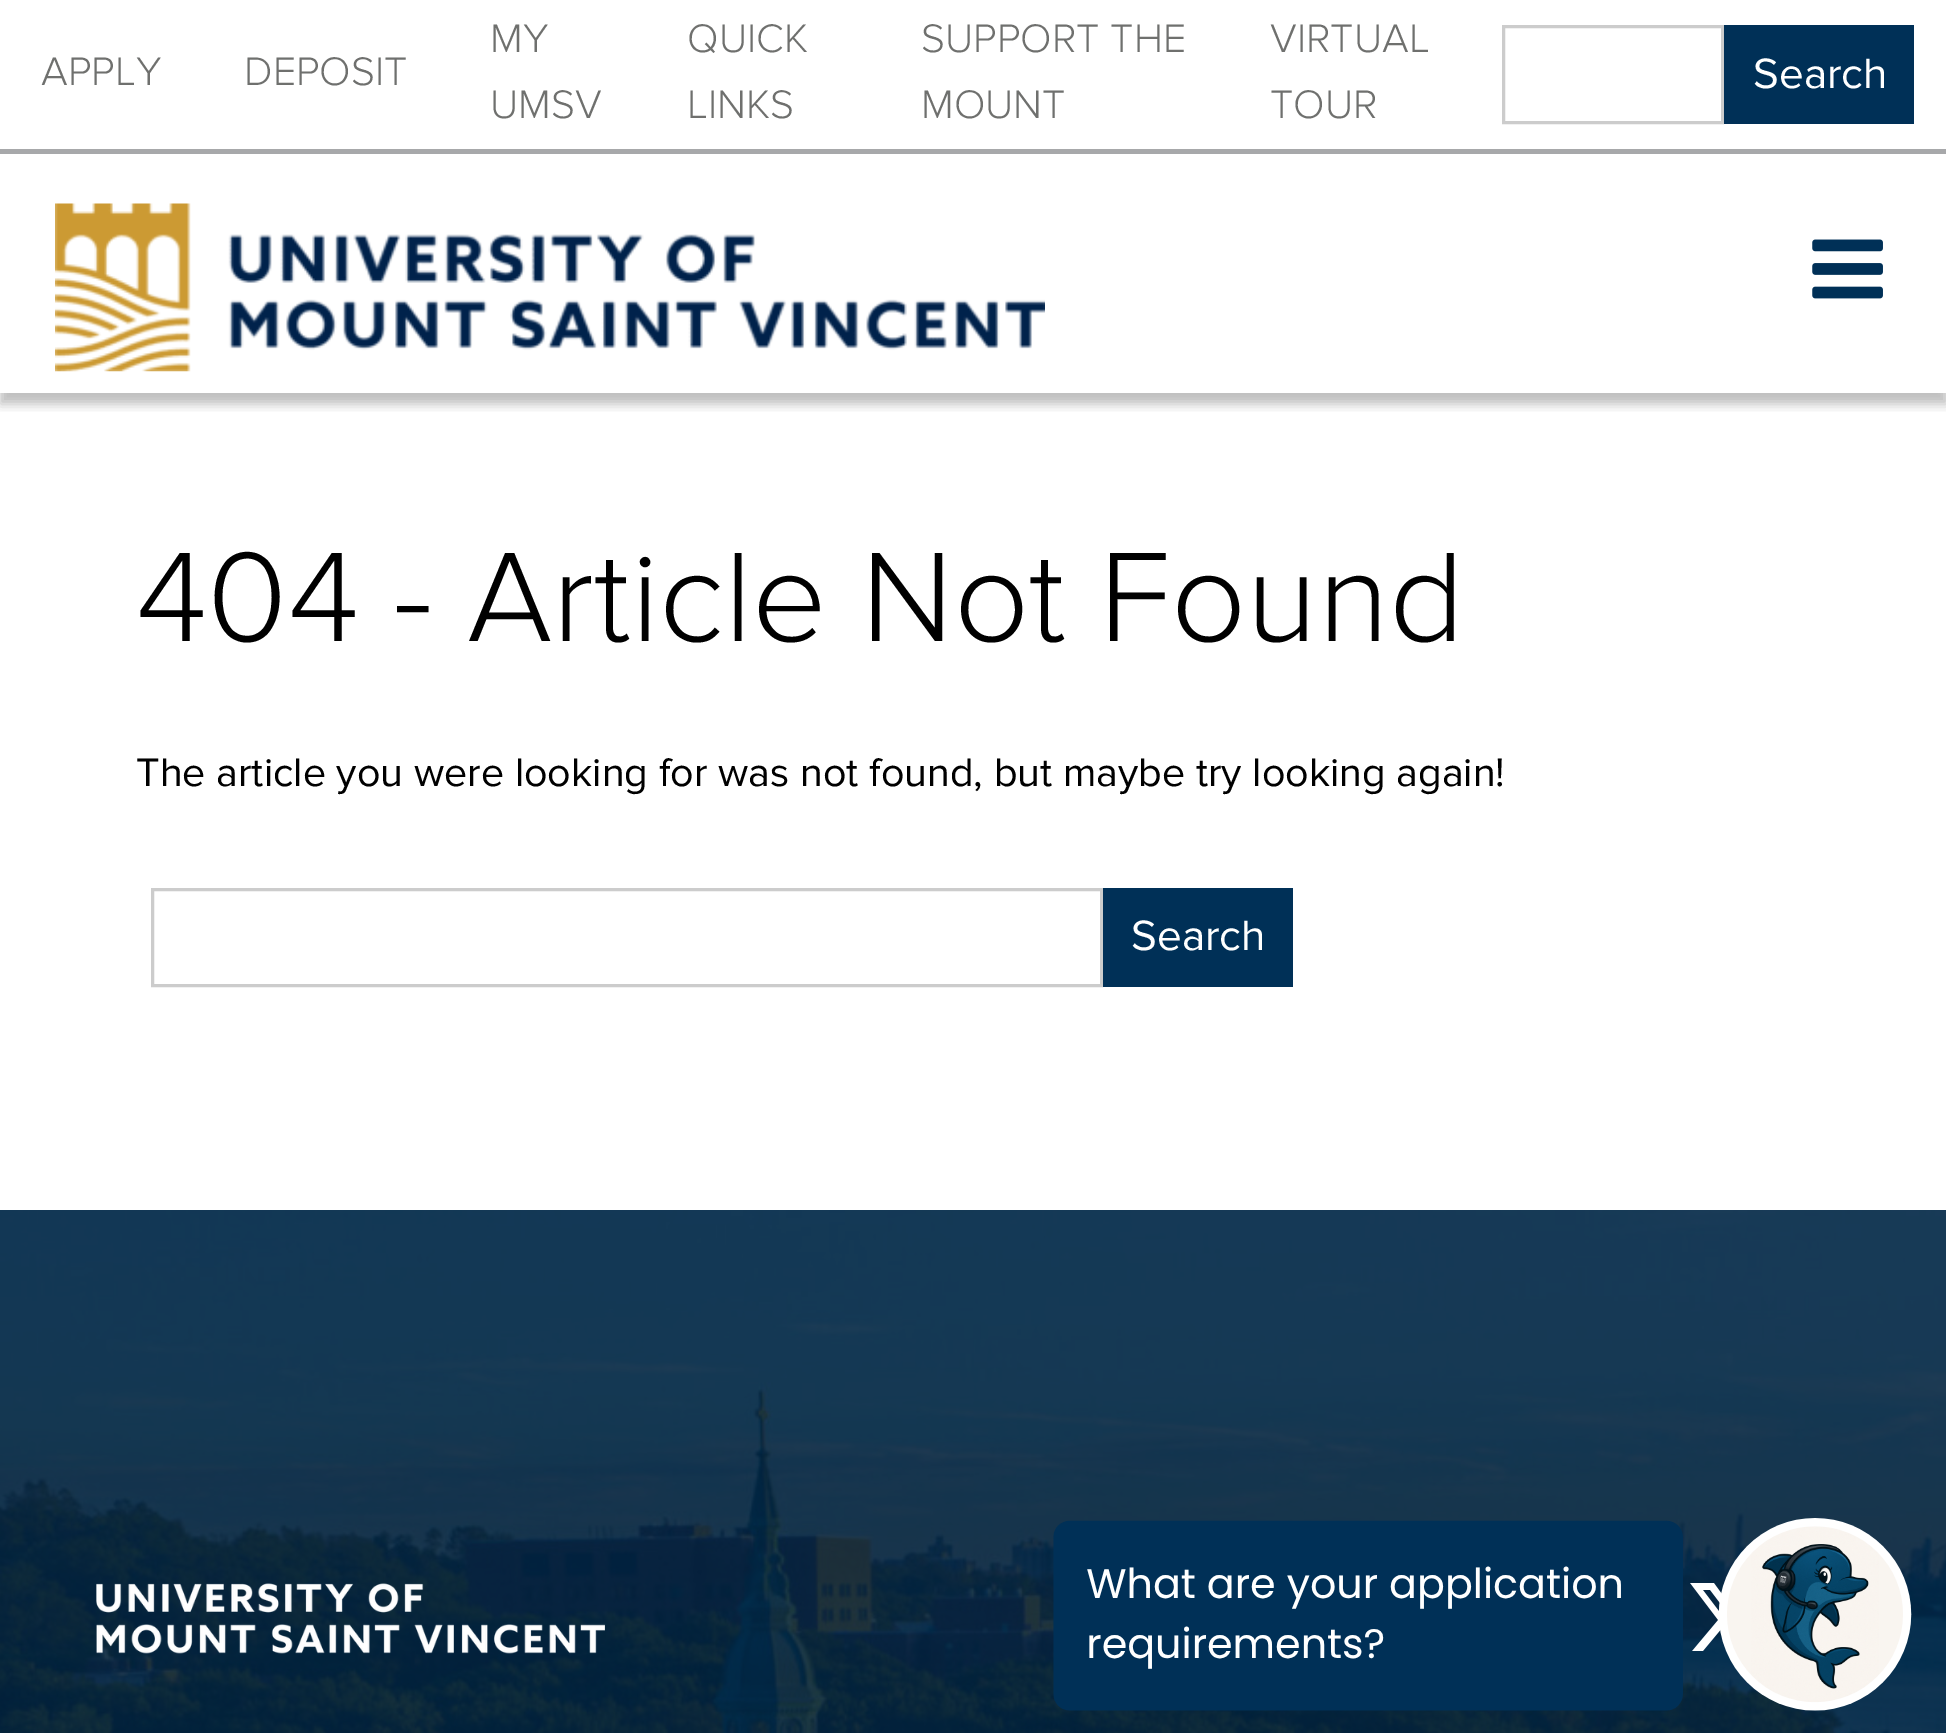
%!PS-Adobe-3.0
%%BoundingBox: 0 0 1946 1733
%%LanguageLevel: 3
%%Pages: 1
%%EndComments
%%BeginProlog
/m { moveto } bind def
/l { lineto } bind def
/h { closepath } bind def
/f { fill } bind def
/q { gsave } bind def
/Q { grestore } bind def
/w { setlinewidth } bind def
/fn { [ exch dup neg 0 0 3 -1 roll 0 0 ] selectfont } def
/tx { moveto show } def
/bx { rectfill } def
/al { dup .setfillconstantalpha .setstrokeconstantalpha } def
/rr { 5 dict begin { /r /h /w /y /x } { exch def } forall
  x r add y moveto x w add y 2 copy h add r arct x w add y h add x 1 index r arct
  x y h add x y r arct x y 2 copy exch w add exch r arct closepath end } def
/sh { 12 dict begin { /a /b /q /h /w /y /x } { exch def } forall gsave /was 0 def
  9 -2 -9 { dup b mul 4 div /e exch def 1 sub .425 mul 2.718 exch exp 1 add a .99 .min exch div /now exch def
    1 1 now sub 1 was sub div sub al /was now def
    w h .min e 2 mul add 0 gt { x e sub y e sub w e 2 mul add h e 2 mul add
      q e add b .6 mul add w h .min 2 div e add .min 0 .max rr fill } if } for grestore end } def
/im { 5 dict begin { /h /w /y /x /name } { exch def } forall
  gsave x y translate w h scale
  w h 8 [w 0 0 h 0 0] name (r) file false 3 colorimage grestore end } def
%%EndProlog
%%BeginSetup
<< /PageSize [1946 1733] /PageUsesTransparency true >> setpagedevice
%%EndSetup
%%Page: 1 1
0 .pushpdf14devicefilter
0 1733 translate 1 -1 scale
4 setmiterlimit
1 setgray
0 0 1946 1733 bx
q
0 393 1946 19 rectclip
0 setgray
0 11 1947 393 0 5.5 0.25 sh
Q
0.655 0.659 0.667 setrgbcolor
0 149 1946 5 bx
/ProximaNova-Light 41.25 fn
0.435 0.439 0.431 setrgbcolor
(APPLY) 41 85 tx
(DEPOSIT) 244 85 tx
(MY) 490 52 tx
(UMSV) 490 118 tx
(QUICK) 687 52 tx
(LINKS) 687 118 tx
(SUPPORT THE) 921 52 tx
(MOUNT) 921 118 tx
(VIRTUAL) 1270 52 tx
(TOUR) 1270 118 tx
0.8 setgray
3 w
1503.5 26.5 219 96 rectstroke
0 0.188 0.341 setrgbcolor
1724 25 190 99 bx
/ProximaNova-Regular 44 fn
1 setgray
(Search) 1753 88 tx
(image0.raw) 55 203 990 169 im
(image1.raw) 1812 239 71 60 im
/ProximaNova-Light 132 fn
0 setgray
(404 - Article Not Found) 136 641 tx
/ProximaNova-Regular 41.25 fn
(The article you were looking for was not found, but maybe try looking again!) 136 786 tx
0.8 setgray
152.5 889.5 949 96 rectstroke
0 0.188 0.341 setrgbcolor
1103 888 190 99 bx
/ProximaNova-Regular 44 fn
1 setgray
(Search) 1131 950 tx
(image2.raw) 0 1210 1946 523 im
(image3.raw) 96 1583 509 71 im
1748 1583 m 1760 1583 l 1735 1612 l 1764 1651 l 1741 1651 l 1723 1627 l 1703 1651 l 1692 1651 l 1718 1620 l 1690 1583 l 1714 1583 l 1730 1605 l h 1744 1644 m 1751 1644 l 1710 1590 l 1703 1590 l h f
(image4.raw) 1053 1518 859 193 im
.poppdf14devicefilter showpage
%%EOF
